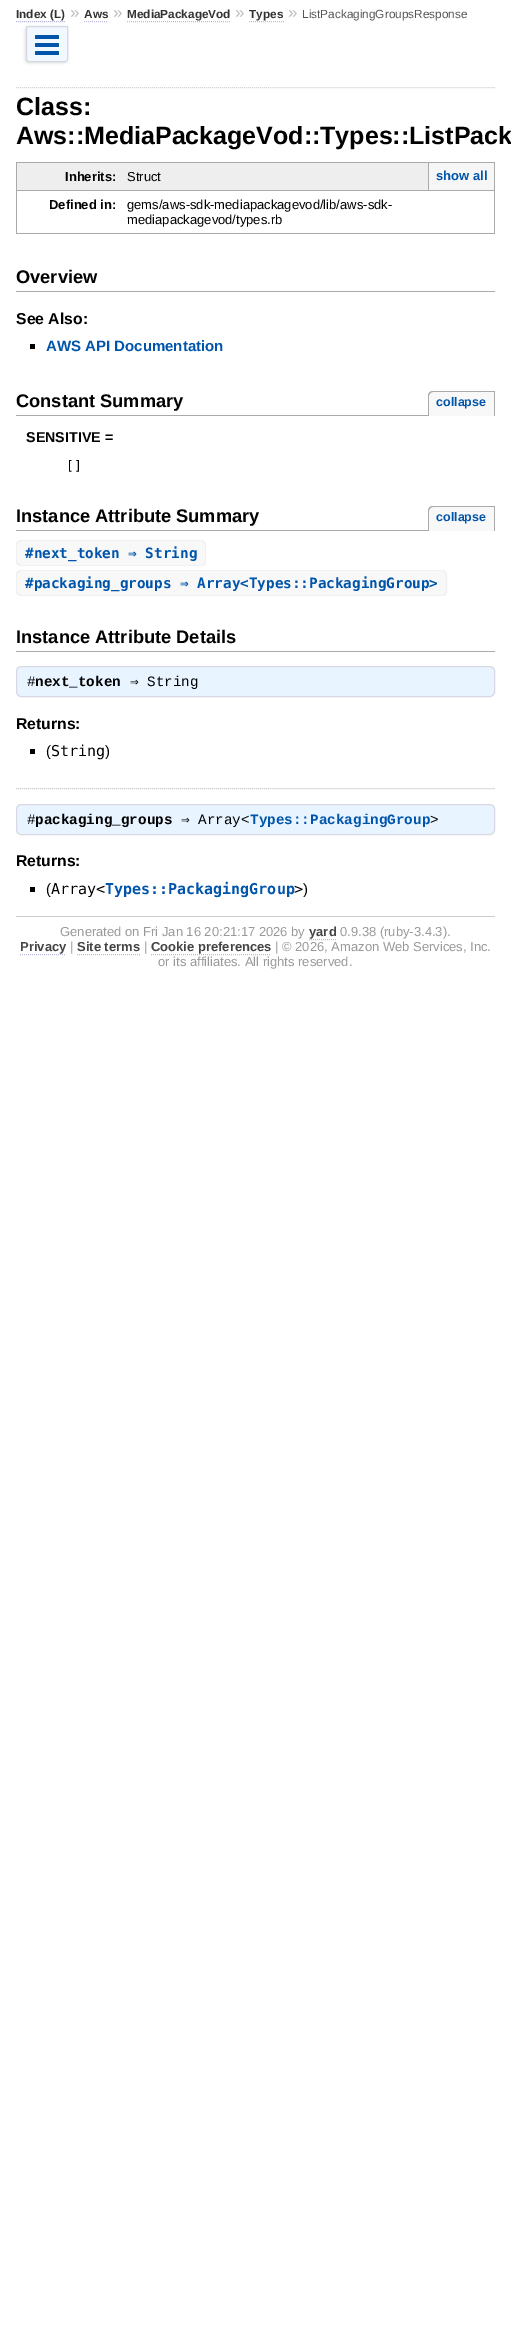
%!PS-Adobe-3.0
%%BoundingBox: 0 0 511 2348
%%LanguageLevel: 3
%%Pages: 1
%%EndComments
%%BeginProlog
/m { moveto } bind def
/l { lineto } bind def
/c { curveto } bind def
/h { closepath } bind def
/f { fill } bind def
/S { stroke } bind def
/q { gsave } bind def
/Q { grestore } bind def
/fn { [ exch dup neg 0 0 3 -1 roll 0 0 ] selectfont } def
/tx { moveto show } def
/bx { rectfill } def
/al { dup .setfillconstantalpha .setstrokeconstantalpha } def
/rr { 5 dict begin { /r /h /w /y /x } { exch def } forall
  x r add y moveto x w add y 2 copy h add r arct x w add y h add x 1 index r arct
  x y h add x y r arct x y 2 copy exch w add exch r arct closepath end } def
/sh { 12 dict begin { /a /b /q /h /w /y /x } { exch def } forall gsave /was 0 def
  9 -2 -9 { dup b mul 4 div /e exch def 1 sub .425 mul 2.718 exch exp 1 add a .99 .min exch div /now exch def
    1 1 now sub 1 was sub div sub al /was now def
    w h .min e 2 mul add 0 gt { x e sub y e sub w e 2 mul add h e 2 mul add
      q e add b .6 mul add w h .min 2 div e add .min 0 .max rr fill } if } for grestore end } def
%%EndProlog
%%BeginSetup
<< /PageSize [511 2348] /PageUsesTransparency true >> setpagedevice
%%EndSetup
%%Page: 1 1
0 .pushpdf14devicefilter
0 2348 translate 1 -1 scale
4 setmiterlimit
1 setgray
0 0 511 2348 bx
/LiberationSans-Bold 11.8 fn
0.2 setgray
(Index \(L\)) 16 18 tx
0.867 setgray
25 27 42 36 3 1.5 1 sh
0.733 0.733 0.867 setrgbcolor
[1 1] 0 setdash
16 21.5 m 65 21.5 l S
/LiberationSans-Regular 17 fn
0.733 setgray
(») 70 18 tx
/LiberationSans-Bold 11.8 fn
0.2 setgray
(Aws) 84 18 tx
0.733 0.733 0.867 setrgbcolor
84 21.5 m 108 21.5 l S
/LiberationSans-Regular 17 fn
0.733 setgray
(») 113 18 tx
/LiberationSans-Bold 11.8 fn
0.2 setgray
(MediaPackageVod) 127 18 tx
0.733 0.733 0.867 setrgbcolor
127 21.5 m 231 21.5 l S
/LiberationSans-Regular 17 fn
0.733 setgray
(») 235 18 tx
/LiberationSans-Bold 11.8 fn
0.2 setgray
(Types) 249 18 tx
0.733 0.733 0.867 setrgbcolor
249 21.5 m 284 21.5 l S
/LiberationSans-Regular 17 fn
0.733 setgray
(») 288 18 tx
/LiberationSans-Regular 11.8 fn
0.333 setgray
(ListPackagingGroupsResponse) 302 18 tx
0.945 0.973 1 setrgbcolor
26.5 26.5 m 67.5 26.5 l 67.5 59 l 67.5 60.5 66.5 61.5 65 61.5 c 29 61.5 l 27.5 61.5 26.5 60.5 26.5 59 c h q f Q
0.847 0.847 0.898 setrgbcolor
[] 0 setdash
S
0 0.333 0.667 setrgbcolor
35 35 24 4 1 rr f
35 43 24 4 1 rr f
35 51 24 4 1 rr f
0.835 setgray
[1 1] 0 setdash
16 87.5 m 495 87.5 l S
/LiberationSans-Bold 25 fn
0 setgray
(Class:) 16 115 tx
(Aws::MediaPackageVod::Types::ListPack) 16 144 tx
0.933 setgray
17 163 411 27 bx
0.667 setgray
16 162 479 1 bx
16 162 1 28 bx
/LiberationSans-Bold 13 fn
0 setgray
(Inherits:) 65 181 tx
0.667 setgray
16 190 479 1 bx
494 162 1 72 bx
/LiberationSans-Regular 13 fn
0 setgray
(Struct) 127 181 tx
0.965 setgray
429 163 65 27 bx
0.667 setgray
428 163 1 27 bx
/LiberationSans-Bold 13 fn
0 0.333 0.667 setrgbcolor
(show all) 436 180 tx
0.667 setgray
16 233 111 1 bx
16 190 1 44 bx
0 setgray
(Defined in:) 49 209 tx
0.667 setgray
127 233 368 1 bx
/LiberationSans-Regular 13 fn
0 setgray
(gems/aws-sdk-mediapackagevod/lib/aws-sdk-) 127 209 tx
(mediapackagevod/types.rb) 127 224 tx
0.667 setgray
16 291 479 1 bx
/LiberationSans-Bold 18.25 fn
0 setgray
(Overview) 16 283 tx
/LiberationSans-Bold 15.75 fn
(See Also:) 16 324 tx
30 344 5 5 bx
/LiberationSans-Bold 15 fn
0 0.333 0.667 setrgbcolor
(AWS API Documentation) 46 351 tx
0.667 setgray
16 415 412 1 bx
/LiberationSans-Bold 18.25 fn
0 setgray
(Constant Summary) 16 407 tx
0.973 setgray
433 391 m 495 391 l 495 416 l 428 416 l 428 396 l 428 393 430 391 433 391 c h f
0.667 setgray
433 391 m 495 391 l 495 416 l 428 416 l 428 396 l 428 393 430 391 433 391 c h 433 392 m 494 392 l 494 416 l 429 416 l 429 396 l 429 394 431 392 433 392 c h eofill
/LiberationSans-Bold 12.5 fn
0 0.333 0.667 setrgbcolor
(collapse) 436 406 tx
/LiberationSans-Bold 14.3 fn
0 setgray
(SENSITIVE =) 26 442 tx
/DejaVuSansMono-Regular 13 fn
([]) 66 470 tx
0.667 setgray
16 530 412 1 bx
/LiberationSans-Bold 18.25 fn
0 setgray
(Instance Attribute Summary) 16 522 tx
0.973 setgray
433 506 m 495 506 l 495 531 l 428 531 l 428 511 l 428 508 430 506 433 506 c h f
0.667 setgray
433 506 m 495 506 l 495 531 l 428 531 l 428 511 l 428 508 430 506 433 506 c h 433 507 m 494 507 l 494 531 l 429 531 l 429 511 l 429 509 431 507 433 507 c h eofill
/LiberationSans-Bold 12.5 fn
0 0.333 0.667 setrgbcolor
(collapse) 436 521 tx
0.973 setgray
21 540 m 33 540 l 33 566 l 21 566 l 18 566 16 564 16 561 c 16 545 l 16 542 18 540 21 540 c h f
0.941 setgray
21 540 m 33 540 l 33 566 l 21 566 l 18 566 16 564 16 561 c 16 545 l 16 542 18 540 21 540 c h 21 541 m 33 541 l 33 565 l 21 565 l 19 565 17 563 17 561 c 17 545 l 17 543 19 541 21 541 c h eofill
0.973 setgray
33 541 86 24 bx
119 540 m 201 540 l 204 540 206 542 206 545 c 206 561 l 206 564 204 566 201 566 c 119 566 l h f
0.941 setgray
119 540 m 201 540 l 204 540 206 542 206 545 c 206 561 l 206 564 204 566 201 566 c 119 566 l h 119 541 m 201 541 l 203 541 205 543 205 545 c 205 561 l 205 563 203 565 201 565 c 119 565 l h eofill
/DejaVuSansMono-Bold 14.3 fn
0 0.333 0.667 setrgbcolor
(#next_token ⇒ String) 25 558 tx
0.941 setgray
33 540 86 1 bx
33 565 86 1 bx
0.973 setgray
21 570 m 33 570 l 33 596 l 21 596 l 18 596 16 594 16 591 c 16 575 l 16 572 18 570 21 570 c h f
0.941 setgray
21 570 m 33 570 l 33 596 l 21 596 l 18 596 16 594 16 591 c 16 575 l 16 572 18 570 21 570 c h 21 571 m 33 571 l 33 595 l 21 595 l 19 595 17 593 17 591 c 17 575 l 17 573 19 571 21 571 c h eofill
0.973 setgray
33 571 138 24 bx
171 570 m 442 570 l 445 570 447 572 447 575 c 447 591 l 447 594 445 596 442 596 c 171 596 l h f
0.941 setgray
171 570 m 443 570 l 449 571 447 579 447 583 c 447 587 449 596 442 596 c 171 596 l h 171 571 m 442 571 l 444 571 446 573 446 575 c 446 591 l 446 593 444 595 442 595 c 171 595 l h eofill
0 0.333 0.667 setrgbcolor
(#packaging_groups ⇒ Array<Types::PackagingGroup>) 25 588 tx
0.941 setgray
33 570 138 1 bx
33 595 138 1 bx
0.667 setgray
16 651 479 1 bx
/LiberationSans-Bold 18.25 fn
0 setgray
(Instance Attribute Details) 16 643 tx
0.91 0.957 1 setrgbcolor
16.5 666.5 478 30 4.5 rr q f Q
0.847 0.847 0.898 setrgbcolor
[] 0 setdash
S
/LiberationMono-Regular 14.3 fn
0 setgray
(#) 27 686 tx
/LiberationMono-Bold 14.3 fn
(next_token) 35 686 tx
/DejaVuSansMono-Regular 14.3 fn
(⇒) 130 686 tx
/LiberationMono-Regular 14.3 fn
(String) 147 686 tx
/LiberationSans-Bold 15.75 fn
(Returns:) 16 729 tx
30 749 5 5 bx
/LiberationSans-Regular 15 fn
(\() 46 756 tx
/DejaVuSansMono-Regular 15 fn
(String) 51 756 tx
/LiberationSans-Regular 15 fn
(\)) 105 756 tx
0.8 setgray
[1 1] 0 setdash
16 788.5 m 495 788.5 l S
0.91 0.957 1 setrgbcolor
16.5 804.5 478 30 4.5 rr q f Q
0.847 0.847 0.898 setrgbcolor
[] 0 setdash
S
/LiberationMono-Regular 14.3 fn
0 setgray
(#) 27 824 tx
/LiberationMono-Bold 14.3 fn
(packaging_groups) 35 824 tx
/DejaVuSansMono-Regular 14.3 fn
(⇒) 181 824 tx
/LiberationMono-Regular 14.3 fn
(Array<) 198 824 tx
/LiberationMono-Bold 14.3 fn
0 0.333 0.667 setrgbcolor
(Types::PackagingGroup) 250 824 tx
/LiberationMono-Regular 14.3 fn
0 setgray
(>) 430 824 tx
/LiberationSans-Bold 15.75 fn
(Returns:) 16 866 tx
30 887 5 5 bx
/LiberationSans-Regular 15 fn
(\() 46 894 tx
/DejaVuSansMono-Regular 15 fn
(Array<) 51 894 tx
/DejaVuSansMono-Bold 15 fn
0 0.333 0.667 setrgbcolor
(Types::PackagingGroup) 105 894 tx
/DejaVuSansMono-Regular 15 fn
0 setgray
(>) 294 894 tx
/LiberationSans-Regular 15 fn
(\)) 303 894 tx
0.8 setgray
16 916 479 1 bx
/LiberationSans-Regular 13 fn
0.6 setgray
(Generated on Fri Jan 16 20:21:17 2026 by) 60 936 tx
/LiberationSans-Bold 13 fn
0.267 setgray
(yard) 309 936 tx
0.733 0.733 0.867 setrgbcolor
[1 1] 0 setdash
309 939.5 m 336 939.5 l S
/LiberationSans-Regular 13 fn
0.6 setgray
(0.9.38 \(ruby-3.4.3\).) 340 936 tx
/LiberationSans-Bold 13 fn
0.267 setgray
(Privacy) 20 951 tx
0.733 0.733 0.867 setrgbcolor
20 954.5 m 66 954.5 l S
/LiberationSans-Regular 13 fn
0.6 setgray
(|) 70 951 tx
/LiberationSans-Bold 13 fn
0.267 setgray
(Site terms) 77 951 tx
0.733 0.733 0.867 setrgbcolor
77 954.5 m 140 954.5 l S
/LiberationSans-Regular 13 fn
0.6 setgray
(|) 144 951 tx
/LiberationSans-Bold 13 fn
0.267 setgray
(Cookie preferences) 151 951 tx
0.733 0.733 0.867 setrgbcolor
151 954.5 m 271 954.5 l S
/LiberationSans-Regular 13 fn
0.6 setgray
(| © 2026, Amazon Web Services, Inc.) 275 951 tx
(or its affiliates. All rights reserved.) 158 966 tx
.poppdf14devicefilter showpage
%%EOF
